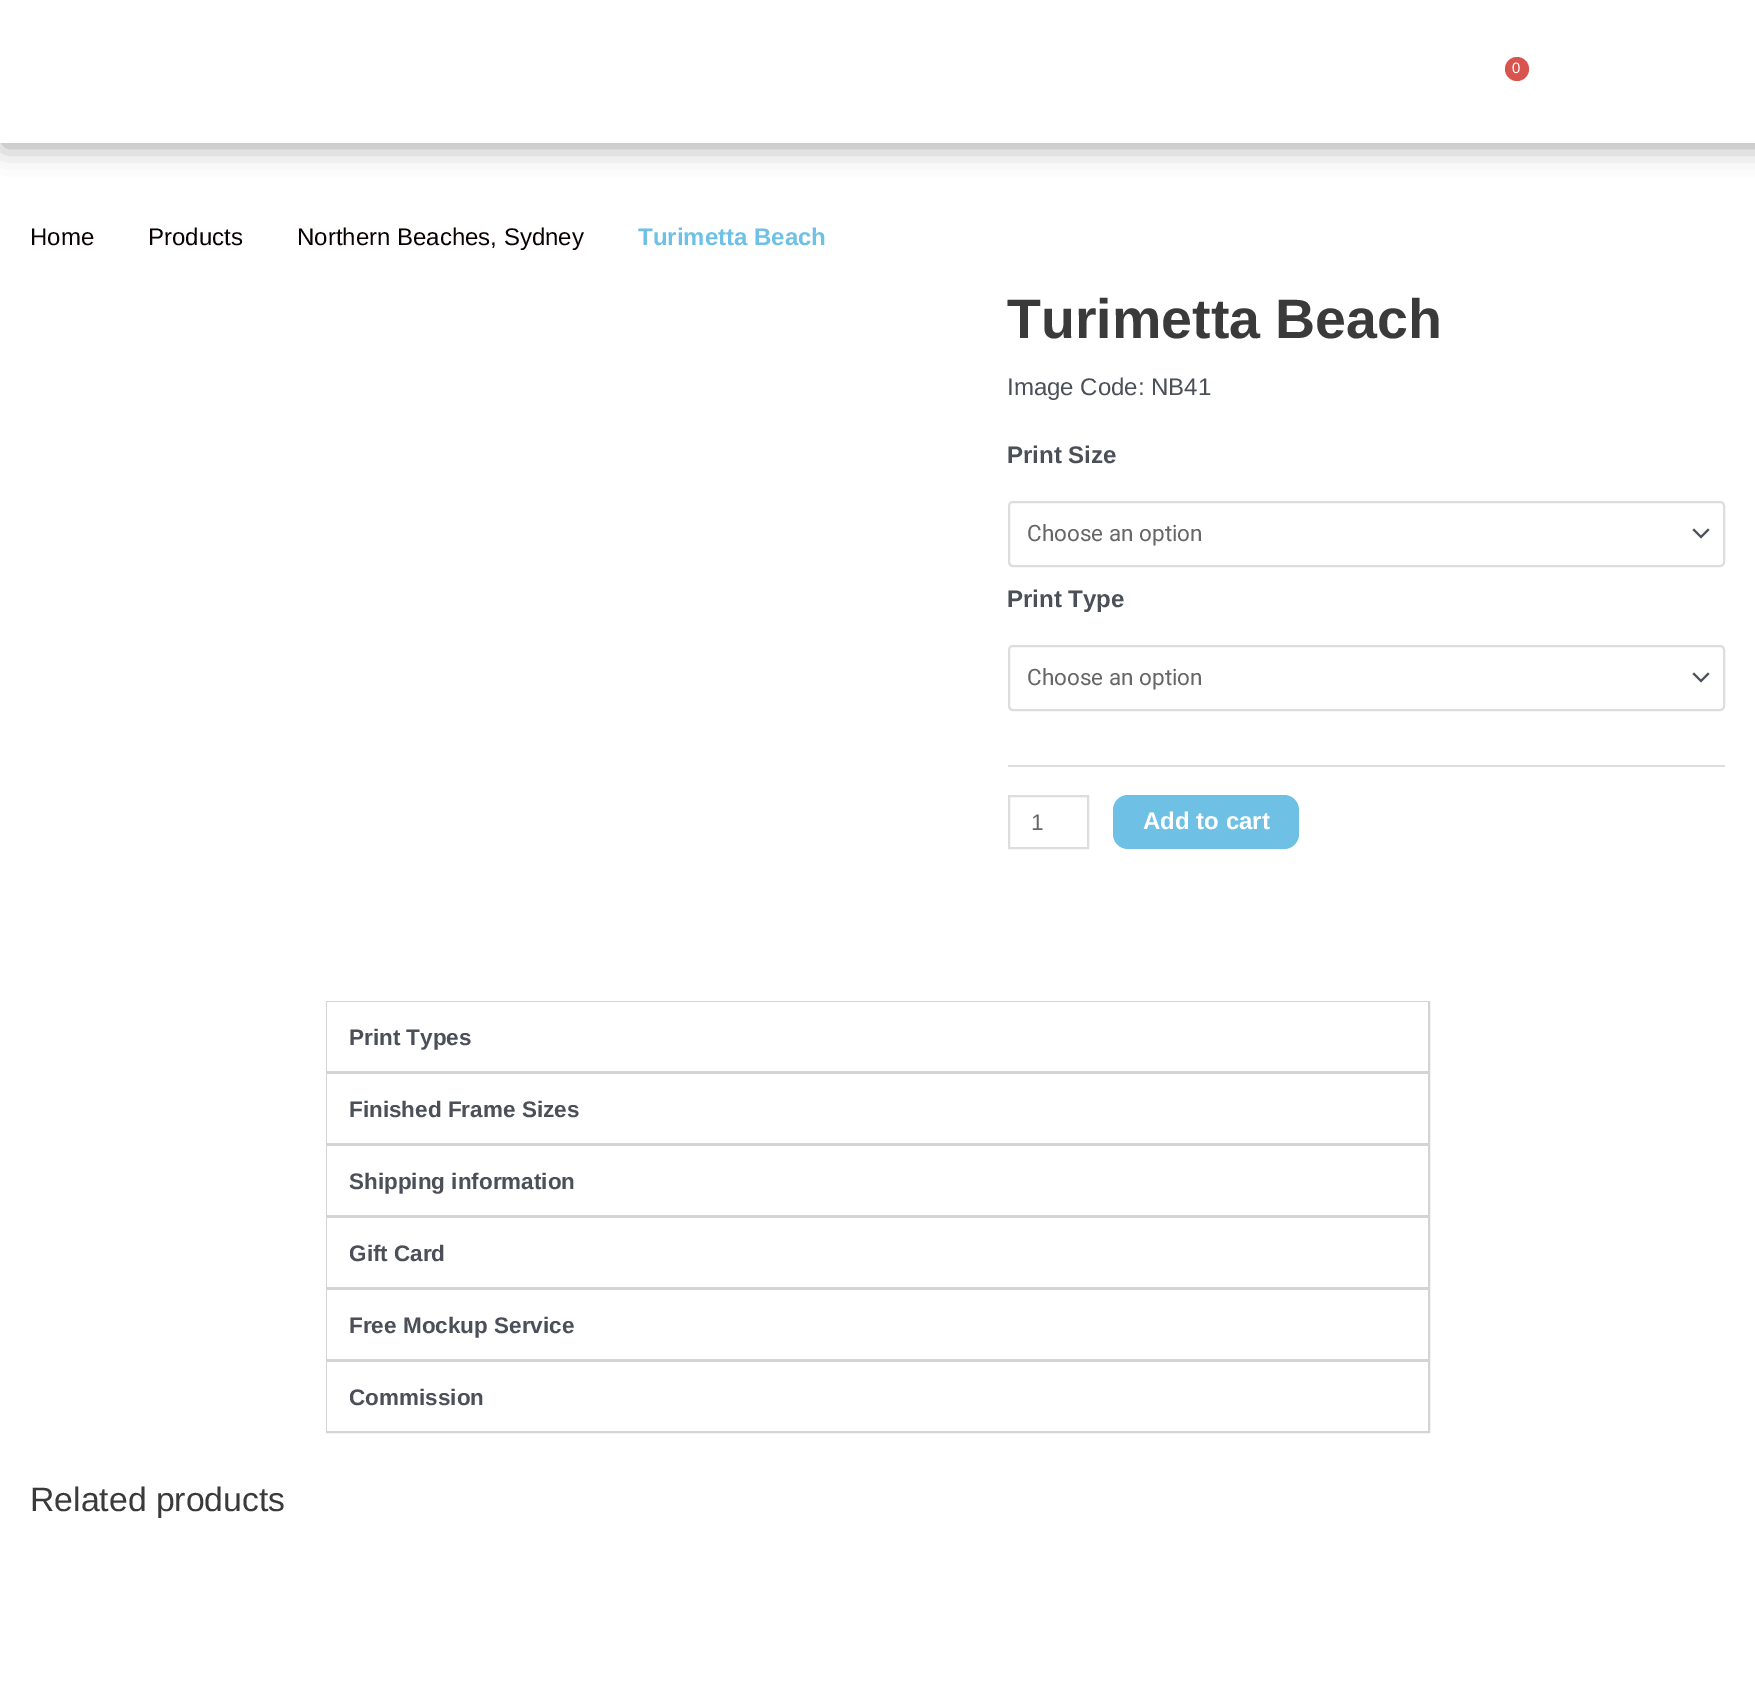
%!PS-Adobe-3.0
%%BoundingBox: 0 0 1755 1688
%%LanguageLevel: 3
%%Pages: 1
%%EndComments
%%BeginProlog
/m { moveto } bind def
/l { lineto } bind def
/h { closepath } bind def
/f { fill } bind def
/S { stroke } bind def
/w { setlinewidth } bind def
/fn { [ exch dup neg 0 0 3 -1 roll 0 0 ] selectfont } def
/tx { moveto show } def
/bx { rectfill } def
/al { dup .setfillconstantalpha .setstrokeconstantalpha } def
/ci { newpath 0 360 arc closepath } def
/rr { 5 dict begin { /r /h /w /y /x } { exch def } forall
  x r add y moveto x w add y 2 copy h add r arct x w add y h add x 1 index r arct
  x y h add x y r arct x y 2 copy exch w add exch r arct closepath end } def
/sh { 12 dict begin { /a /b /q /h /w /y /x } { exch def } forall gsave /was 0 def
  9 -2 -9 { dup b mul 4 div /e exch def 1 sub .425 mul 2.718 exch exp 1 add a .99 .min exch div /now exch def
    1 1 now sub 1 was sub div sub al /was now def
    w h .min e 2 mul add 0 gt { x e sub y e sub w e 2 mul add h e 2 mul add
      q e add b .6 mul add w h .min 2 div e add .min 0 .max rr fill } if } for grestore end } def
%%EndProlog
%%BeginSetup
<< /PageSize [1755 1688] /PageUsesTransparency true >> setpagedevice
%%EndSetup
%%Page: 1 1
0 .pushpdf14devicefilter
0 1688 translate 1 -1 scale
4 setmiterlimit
1 setgray
0 0 1755 1688 bx
0 setgray
3 -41 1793 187 0 13.5 0.39 sh
1 setgray
0 0 1755 143 bx
0.851 0.325 0.31 setrgbcolor
1517 69 12 ci f
/LiberationSans-Regular 15 fn
1 setgray
(0) 1512 73 tx
/LiberationSans-Regular 24 fn
0.035 0 0 setrgbcolor
(Home) 30 245 tx
(Products) 148 245 tx
(Northern Beaches, Sydney) 297 245 tx
/LiberationSans-Bold 24 fn
0.431 0.757 0.894 setrgbcolor
(Turimetta Beach) 638 245 tx
/LiberationSans-Bold 55.5 fn
0.227 setgray
(Turimetta Beach) 1007 338 tx
/LiberationSans-Regular 24 fn
0.294 0.31 0.345 setrgbcolor
(Image Code: NB41) 1007 395 tx
0.867 setgray
1008 765 717 2 bx
/LiberationSans-Bold 24 fn
0.294 0.31 0.345 setrgbcolor
(Print Size) 1007 463 tx
1692.5 530 m 1701 538.5 l 1709.5 530 l 1708 528.5 l 1701 535.5 l 1694 528.5 l h f
0.867 setgray
2 w
1009 502 715 64 4 rr S
/Roboto-Regular 22.5 fn
0.4 setgray
(Choose an option) 1027 541 tx
/LiberationSans-Bold 24 fn
0.294 0.31 0.345 setrgbcolor
(Print Type) 1007 607 tx
1692.5 674 m 1701 682.5 l 1709.5 674 l 1708 672.5 l 1701 679.5 l 1694 672.5 l h f
0.867 setgray
1009 646 715 64 4 rr S
/Roboto-Regular 22.5 fn
0.4 setgray
(Choose an option) 1027 685 tx
0.867 setgray
1009 796 79 52 rectstroke
/LiberationSans-Regular 22.5 fn
0.4 setgray
(1) 1031 830 tx
0.431 0.757 0.894 setrgbcolor
1113 795 186 54 15 rr f
/LiberationSans-Bold 24 fn
1 setgray
(Add to cart) 1143 829 tx
0.831 setgray
327 1002 1102 70 rectstroke
1 setgray
327 1002 1101 69 bx
/LiberationSans-Bold 22.5 fn
0.294 0.31 0.345 setrgbcolor
(Print Types) 349 1045 tx
0.831 setgray
327 1074 1102 70 rectstroke
1 setgray
327 1074 1101 69 bx
0.294 0.31 0.345 setrgbcolor
(Finished Frame Sizes) 349 1117 tx
0.831 setgray
327 1146 1102 70 rectstroke
1 setgray
327 1146 1101 69 bx
0.294 0.31 0.345 setrgbcolor
(Shipping information) 349 1189 tx
0.831 setgray
327 1218 1102 70 rectstroke
1 setgray
327 1218 1101 69 bx
0.294 0.31 0.345 setrgbcolor
(Gift Card) 349 1261 tx
0.831 setgray
327 1290 1102 70 rectstroke
1 setgray
327 1290 1101 69 bx
0.294 0.31 0.345 setrgbcolor
(Free Mockup Service) 349 1333 tx
0.831 setgray
327 1362 1102 70 rectstroke
1 setgray
327 1362 1101 69 bx
0.294 0.31 0.345 setrgbcolor
(Commission) 349 1405 tx
/LiberationSans-Regular 33.75 fn
0.227 setgray
(Related products) 30 1511 tx
.poppdf14devicefilter showpage
%%EOF
